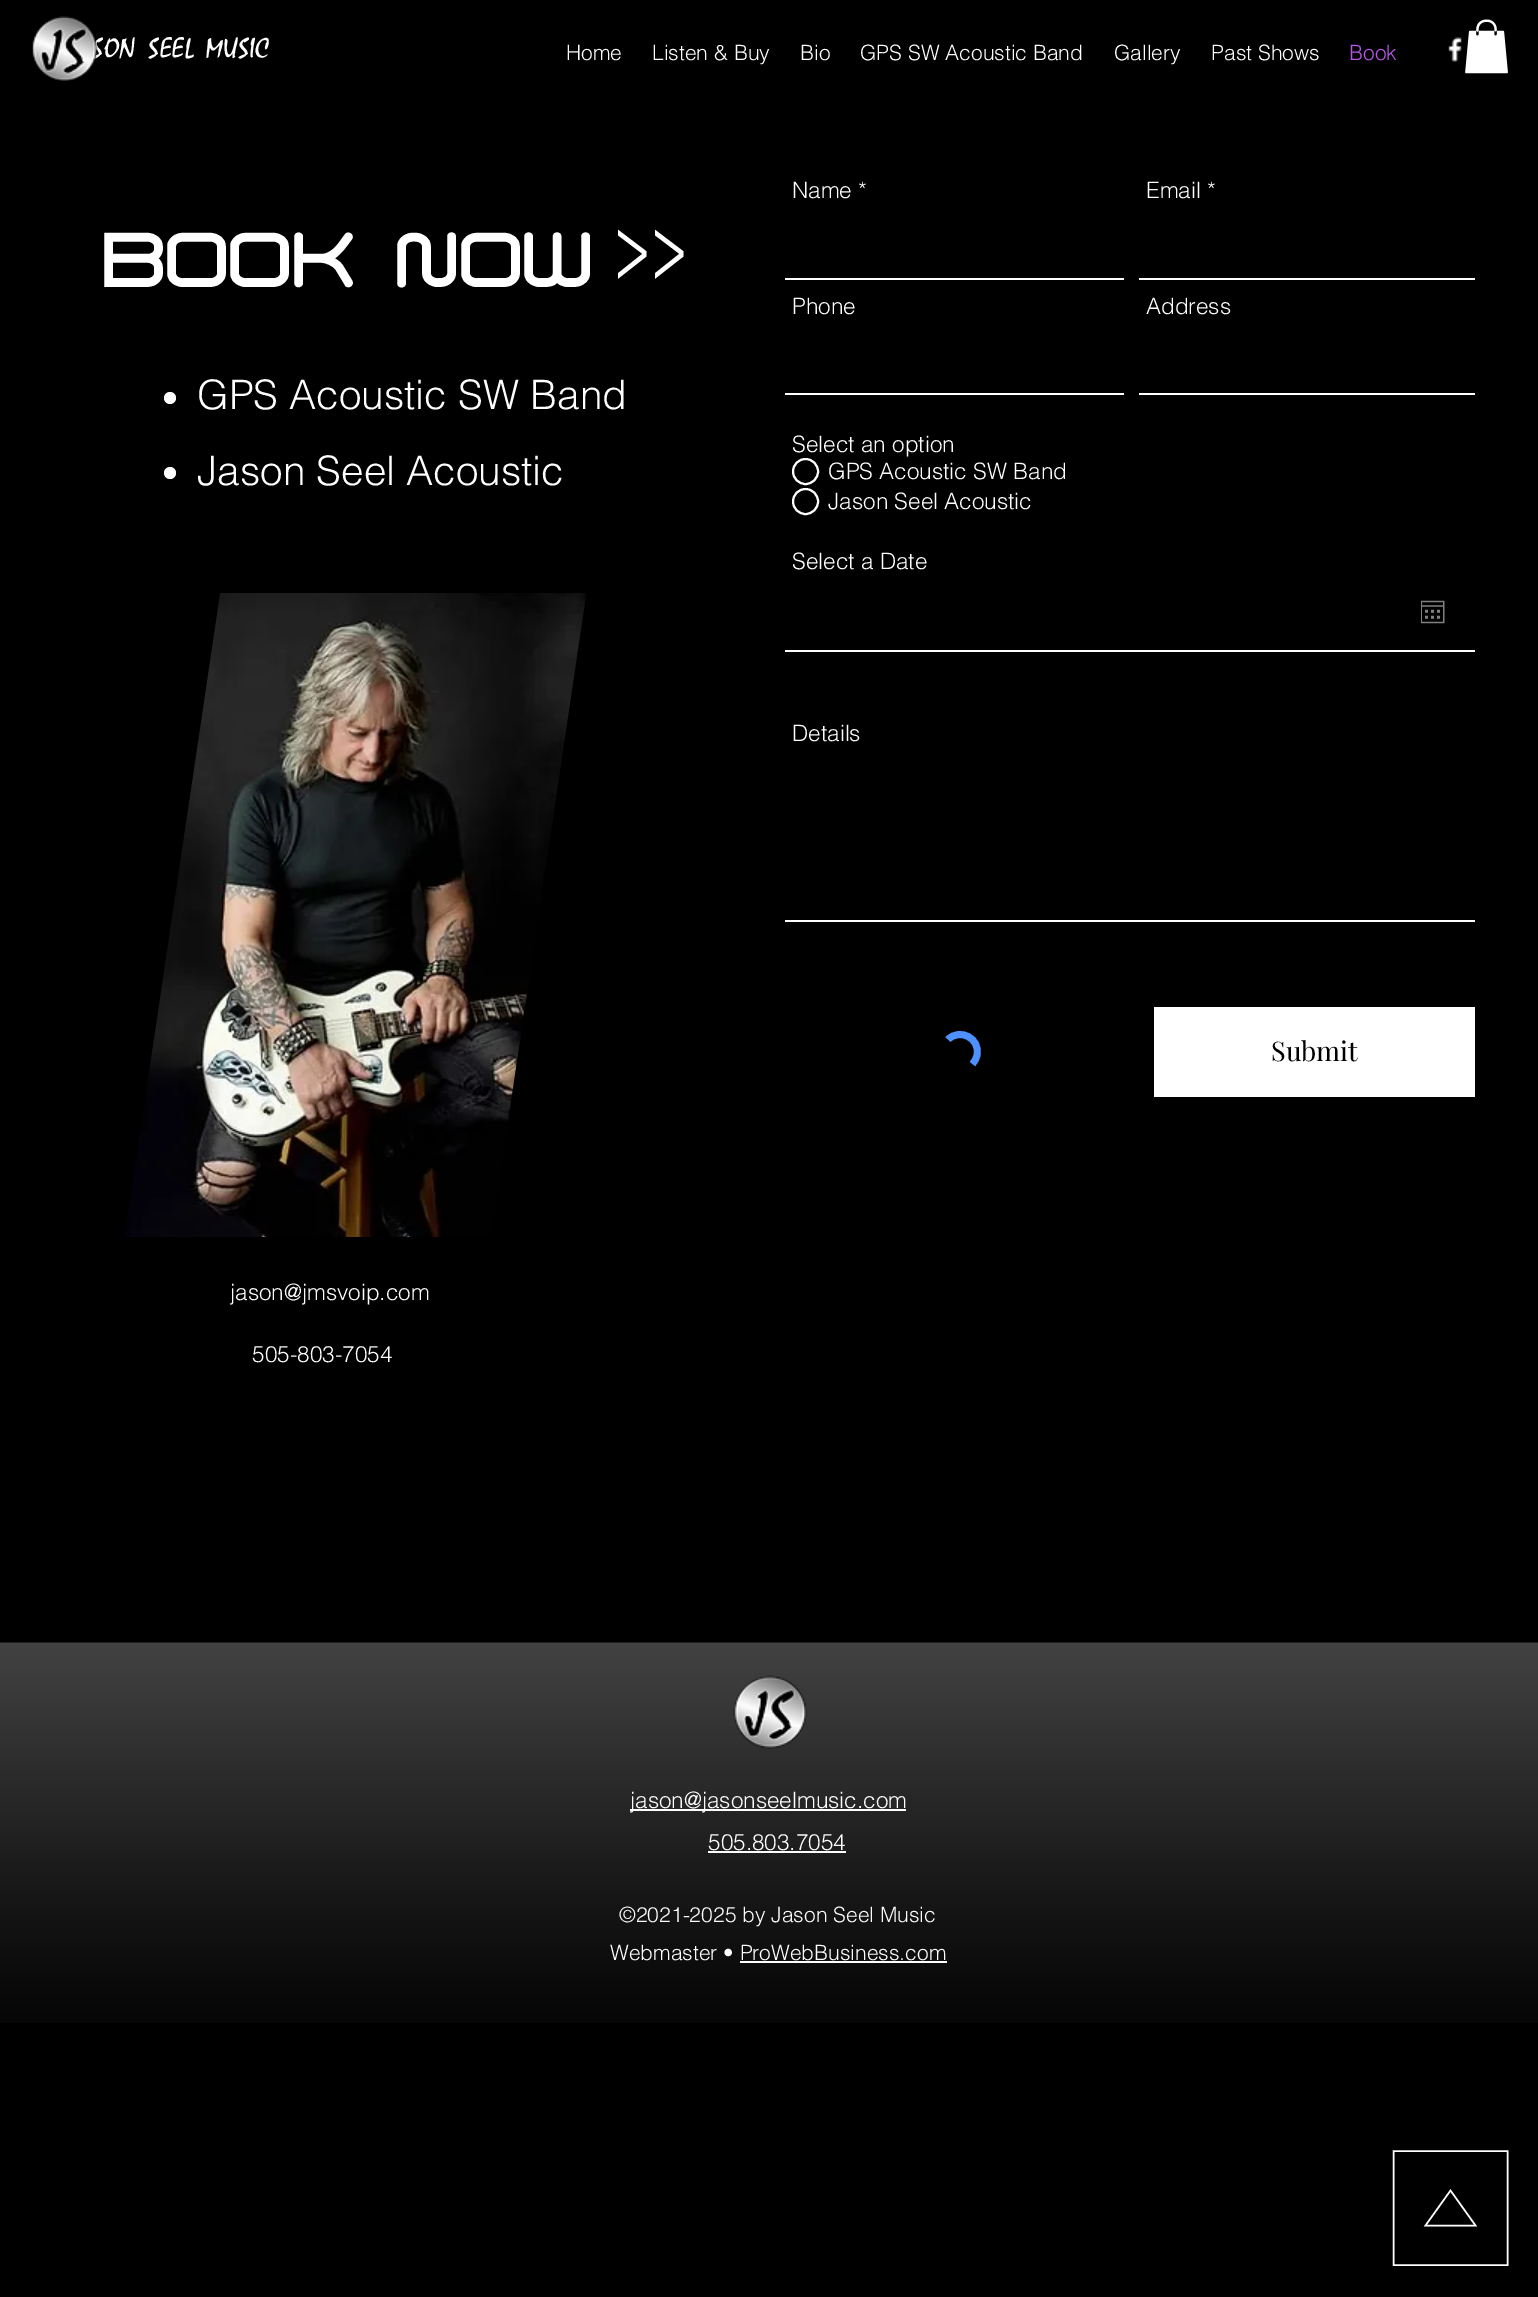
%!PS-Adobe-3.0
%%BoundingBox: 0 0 1538 2297
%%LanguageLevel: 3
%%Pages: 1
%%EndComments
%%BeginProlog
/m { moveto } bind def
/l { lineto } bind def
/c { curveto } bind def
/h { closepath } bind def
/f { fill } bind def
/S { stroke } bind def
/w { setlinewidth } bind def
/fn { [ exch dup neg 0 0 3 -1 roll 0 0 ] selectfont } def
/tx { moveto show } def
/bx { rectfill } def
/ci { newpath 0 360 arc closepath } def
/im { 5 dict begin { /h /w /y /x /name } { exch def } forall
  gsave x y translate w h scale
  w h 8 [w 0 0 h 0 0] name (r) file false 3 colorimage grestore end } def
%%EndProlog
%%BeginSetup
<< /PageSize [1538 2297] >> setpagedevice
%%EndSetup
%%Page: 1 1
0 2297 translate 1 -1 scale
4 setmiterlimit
0 setgray
0 0 1538 2297 bx
/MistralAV-Regular 25.5 fn
1 setgray
(SON SEEL MUSIC) 92 57 tx
(image0.raw) 32 16 66 65 im
/helvetica-Light 21 fn
(Home) 566 60 tx
(Listen & Buy) 652 60 tx
(Bio) 800 60 tx
(GPS SW Acoustic Band) 860 60 tx
(Gallery) 1114 60 tx
(Past Shows) 1211 60 tx
0.718 0.337 0.91 setrgbcolor
(Book) 1349 60 tx
(image1.raw) 1448 37 14 25 im
(image2.raw) 1465 19 43 55 im
/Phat-BoldItalic 73.5 fn
1 setgray
(BOOK NOW) 102 287 tx
/Oswald-ExtraLight 105 fn
(>>) 612 287 tx
170 398 6 ci f
/helvetica-Light 40.5 fn
(GPS Acoustic SW Band) 197 409 tx
170 473 6 ci f
(Jason Seel Acoustic) 197 485 tx
(image3.raw) 125 593 461 645 im
/helvetica-Light 22.5 fn
(jason@jmsvoip.com) 230 1300 tx
(505-803-7054) 252 1362 tx
(Name *) 792 198 tx
785 278 339 2 bx
(Email *) 1146 198 tx
1139 278 336 2 bx
(Phone) 792 314 tx
785 393 339 2 bx
(Address) 1146 314 tx
1139 393 336 2 bx
(Select an option) 792 452 tx
2 w
805.5 471.5 12.5 ci S
(GPS Acoustic SW Band) 828 479 tx
805.5 501.5 12.5 ci S
(Jason Seel Acoustic) 828 509 tx
(Select a Date) 792 569 tx
785 650 690 2 bx
(image4.raw) 1421 600 24 24 im
(Details) 792 741 tx
785 920 690 2 bx
0.302 0.565 0.996 setrgbcolor
6.9 w
948 1039.5 m 960 1027.5 980.5 1038.5 977 1055 c 976.5 1058.5 974.5 1061.5 972.5 1064 c S
1 setgray
1154 1007 321 90 bx
/PlayfairDisplay-Regular 27 fn
0 setgray
(Submit) 1271 1061 tx
(image5.raw) 0 1642 1538 381 im
(image6.raw) 733 1675 74 74 im
1 setgray
630 1809 276 2 bx
/helvetica-Light 22.5 fn
(jason@jasonseelmusic.com) 630 1808 tx
(505.803.7054) 708 1850 tx
708 1851 138 2 bx
/helvetica-Light 21 fn
(©2021-2025 by Jason Seel Music) 619 1922 tx
(Webmaster • ProWebBusiness.com) 610 1960 tx
740 1961 207 2 bx
1.5 w
1393.5 2151 m 1393.5 2265 l 1507.5 2265 l 1507.5 2151 l h 1425.5 2225.5 m 1450.5 2190.5 l 1475.5 2225.5 l h S
showpage
%%EOF
